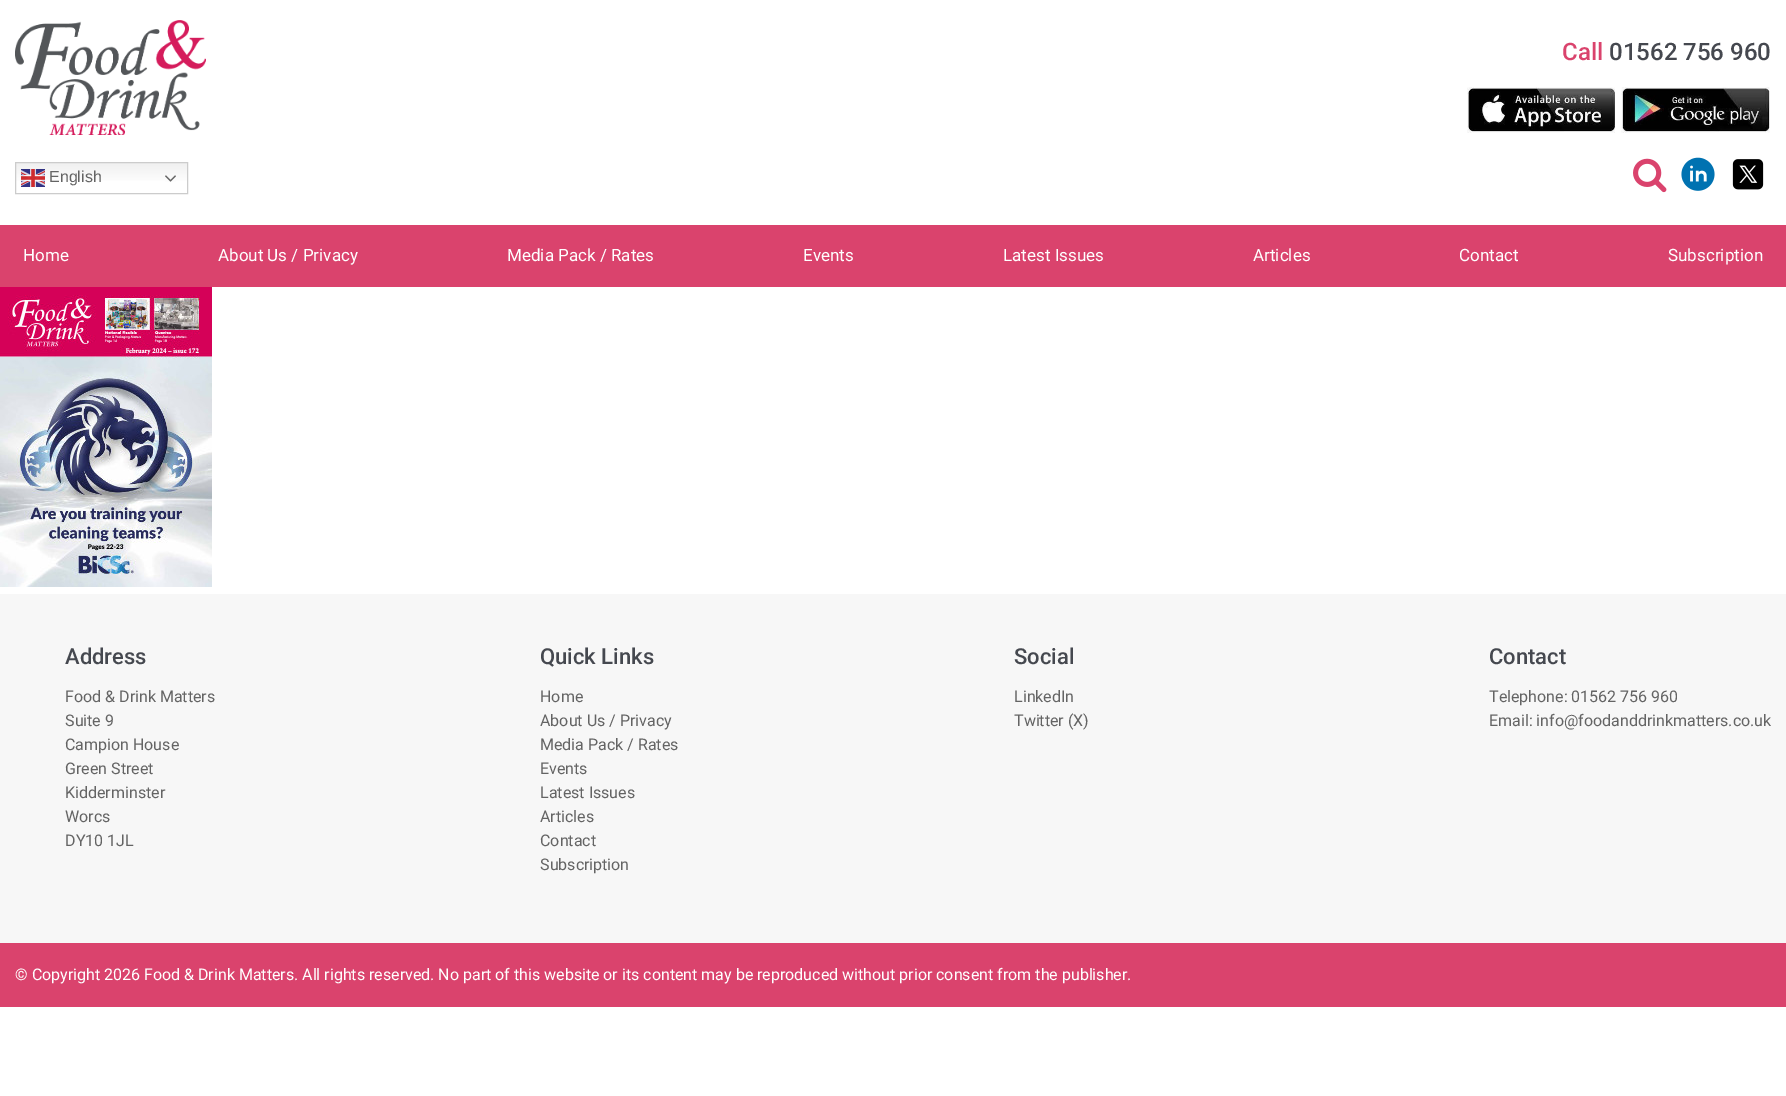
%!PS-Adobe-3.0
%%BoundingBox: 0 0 1786 1096
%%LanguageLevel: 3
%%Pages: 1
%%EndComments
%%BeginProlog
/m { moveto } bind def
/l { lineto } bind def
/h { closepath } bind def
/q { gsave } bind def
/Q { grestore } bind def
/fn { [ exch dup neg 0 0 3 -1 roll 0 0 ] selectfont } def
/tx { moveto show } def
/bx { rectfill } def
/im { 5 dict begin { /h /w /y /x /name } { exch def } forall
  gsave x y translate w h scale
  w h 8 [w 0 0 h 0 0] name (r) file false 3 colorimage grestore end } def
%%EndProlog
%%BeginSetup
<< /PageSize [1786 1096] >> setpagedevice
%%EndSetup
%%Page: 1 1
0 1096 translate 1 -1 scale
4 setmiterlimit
1 setgray
0 0 1786 1096 bx
(image0.raw) 15 20 191 115 im
/Roboto-Medium 24 fn
0.855 0.263 0.427 setrgbcolor
(Call) 1562 60 tx
0.271 0.282 0.31 setrgbcolor
(01562 756 960) 1609 60 tx
(image1.raw) 1467 87 148 46 im
(image2.raw) 1621 87 149 46 im
q 16 163 m 187 163 l 187 181 l 16 181 l h clip newpath
<< /ShadingType 2 /ColorSpace /DeviceRGB /Coords [102 162 102 194] /Extend [true true] /Function << /FunctionType 3 /Domain [0 1] /Functions [<< /FunctionType 2 /Domain [0 1] /C0 [0.937 0.937 0.937] /C1 [1 1 1] /N 1 >> << /FunctionType 2 /Domain [0 1] /C0 [1 1 1] /C1 [1 1 1] /N 1 >>] /Bounds [0.7] /Encode [0 1 0 1] >> >> shfill Q
0.8 setgray
15.5 162.5 172 31 rectstroke
(image3.raw) 21 169 24 18 im
/LiberationSans-Regular 16 fn
0.392 setgray
(English) 49 182 tx
(image4.raw) 165 175 11 7 im
(image5.raw) 1633 158 34 35 im
(image6.raw) 1681 157 34 34 im
(image7.raw) 1732 159 32 31 im
0.855 0.263 0.427 setrgbcolor
0 225 1786 62 bx
/Roboto-Regular 17 fn
1 setgray
(Home) 23 261 tx
(About Us / Privacy) 218 261 tx
(Media Pack / Rates) 507 261 tx
(Events) 803 261 tx
(Latest Issues) 1003 261 tx
(Articles) 1253 261 tx
(Contact) 1459 261 tx
(Subscription) 1668 261 tx
(image8.raw) 0 287 212 300 im
0.969 setgray
0 594 1786 349 bx
/Roboto-Medium 22 fn
0.271 0.282 0.31 setrgbcolor
(Address) 65 664 tx
/Roboto-Regular 16 fn
0.392 setgray
(Food & Drink Matters) 65 702 tx
(Suite 9) 65 726 tx
(Campion House) 65 750 tx
(Green Street) 65 774 tx
(Kidderminster) 65 798 tx
(Worcs) 65 822 tx
(DY10 1JL) 65 846 tx
/Roboto-Medium 22 fn
0.271 0.282 0.31 setrgbcolor
(Quick Links) 540 664 tx
/Roboto-Regular 16 fn
0.392 setgray
(Home) 540 702 tx
(About Us / Privacy) 540 726 tx
(Media Pack / Rates) 540 750 tx
(Events) 540 774 tx
(Latest Issues) 540 798 tx
(Articles) 540 822 tx
(Contact) 540 846 tx
(Subscription) 540 870 tx
/Roboto-Medium 22 fn
0.271 0.282 0.31 setrgbcolor
(Social) 1014 664 tx
/Roboto-Regular 16 fn
0.392 setgray
(LinkedIn) 1014 702 tx
(Twitter \(X\)) 1014 726 tx
/Roboto-Medium 22 fn
0.271 0.282 0.31 setrgbcolor
(Contact) 1489 664 tx
/Roboto-Regular 16 fn
0.392 setgray
(Telephone: 01562 756 960) 1489 702 tx
(Email: info@foodanddrinkmatters.co.uk) 1489 726 tx
0.855 0.263 0.427 setrgbcolor
0 943 1786 64 bx
1 setgray
(© Copyright 2026 Food & Drink Matters. All rights reserved. No part of this website or its content may be reproduced without prior consent from the publisher.) 15 980 tx
showpage
%%EOF
